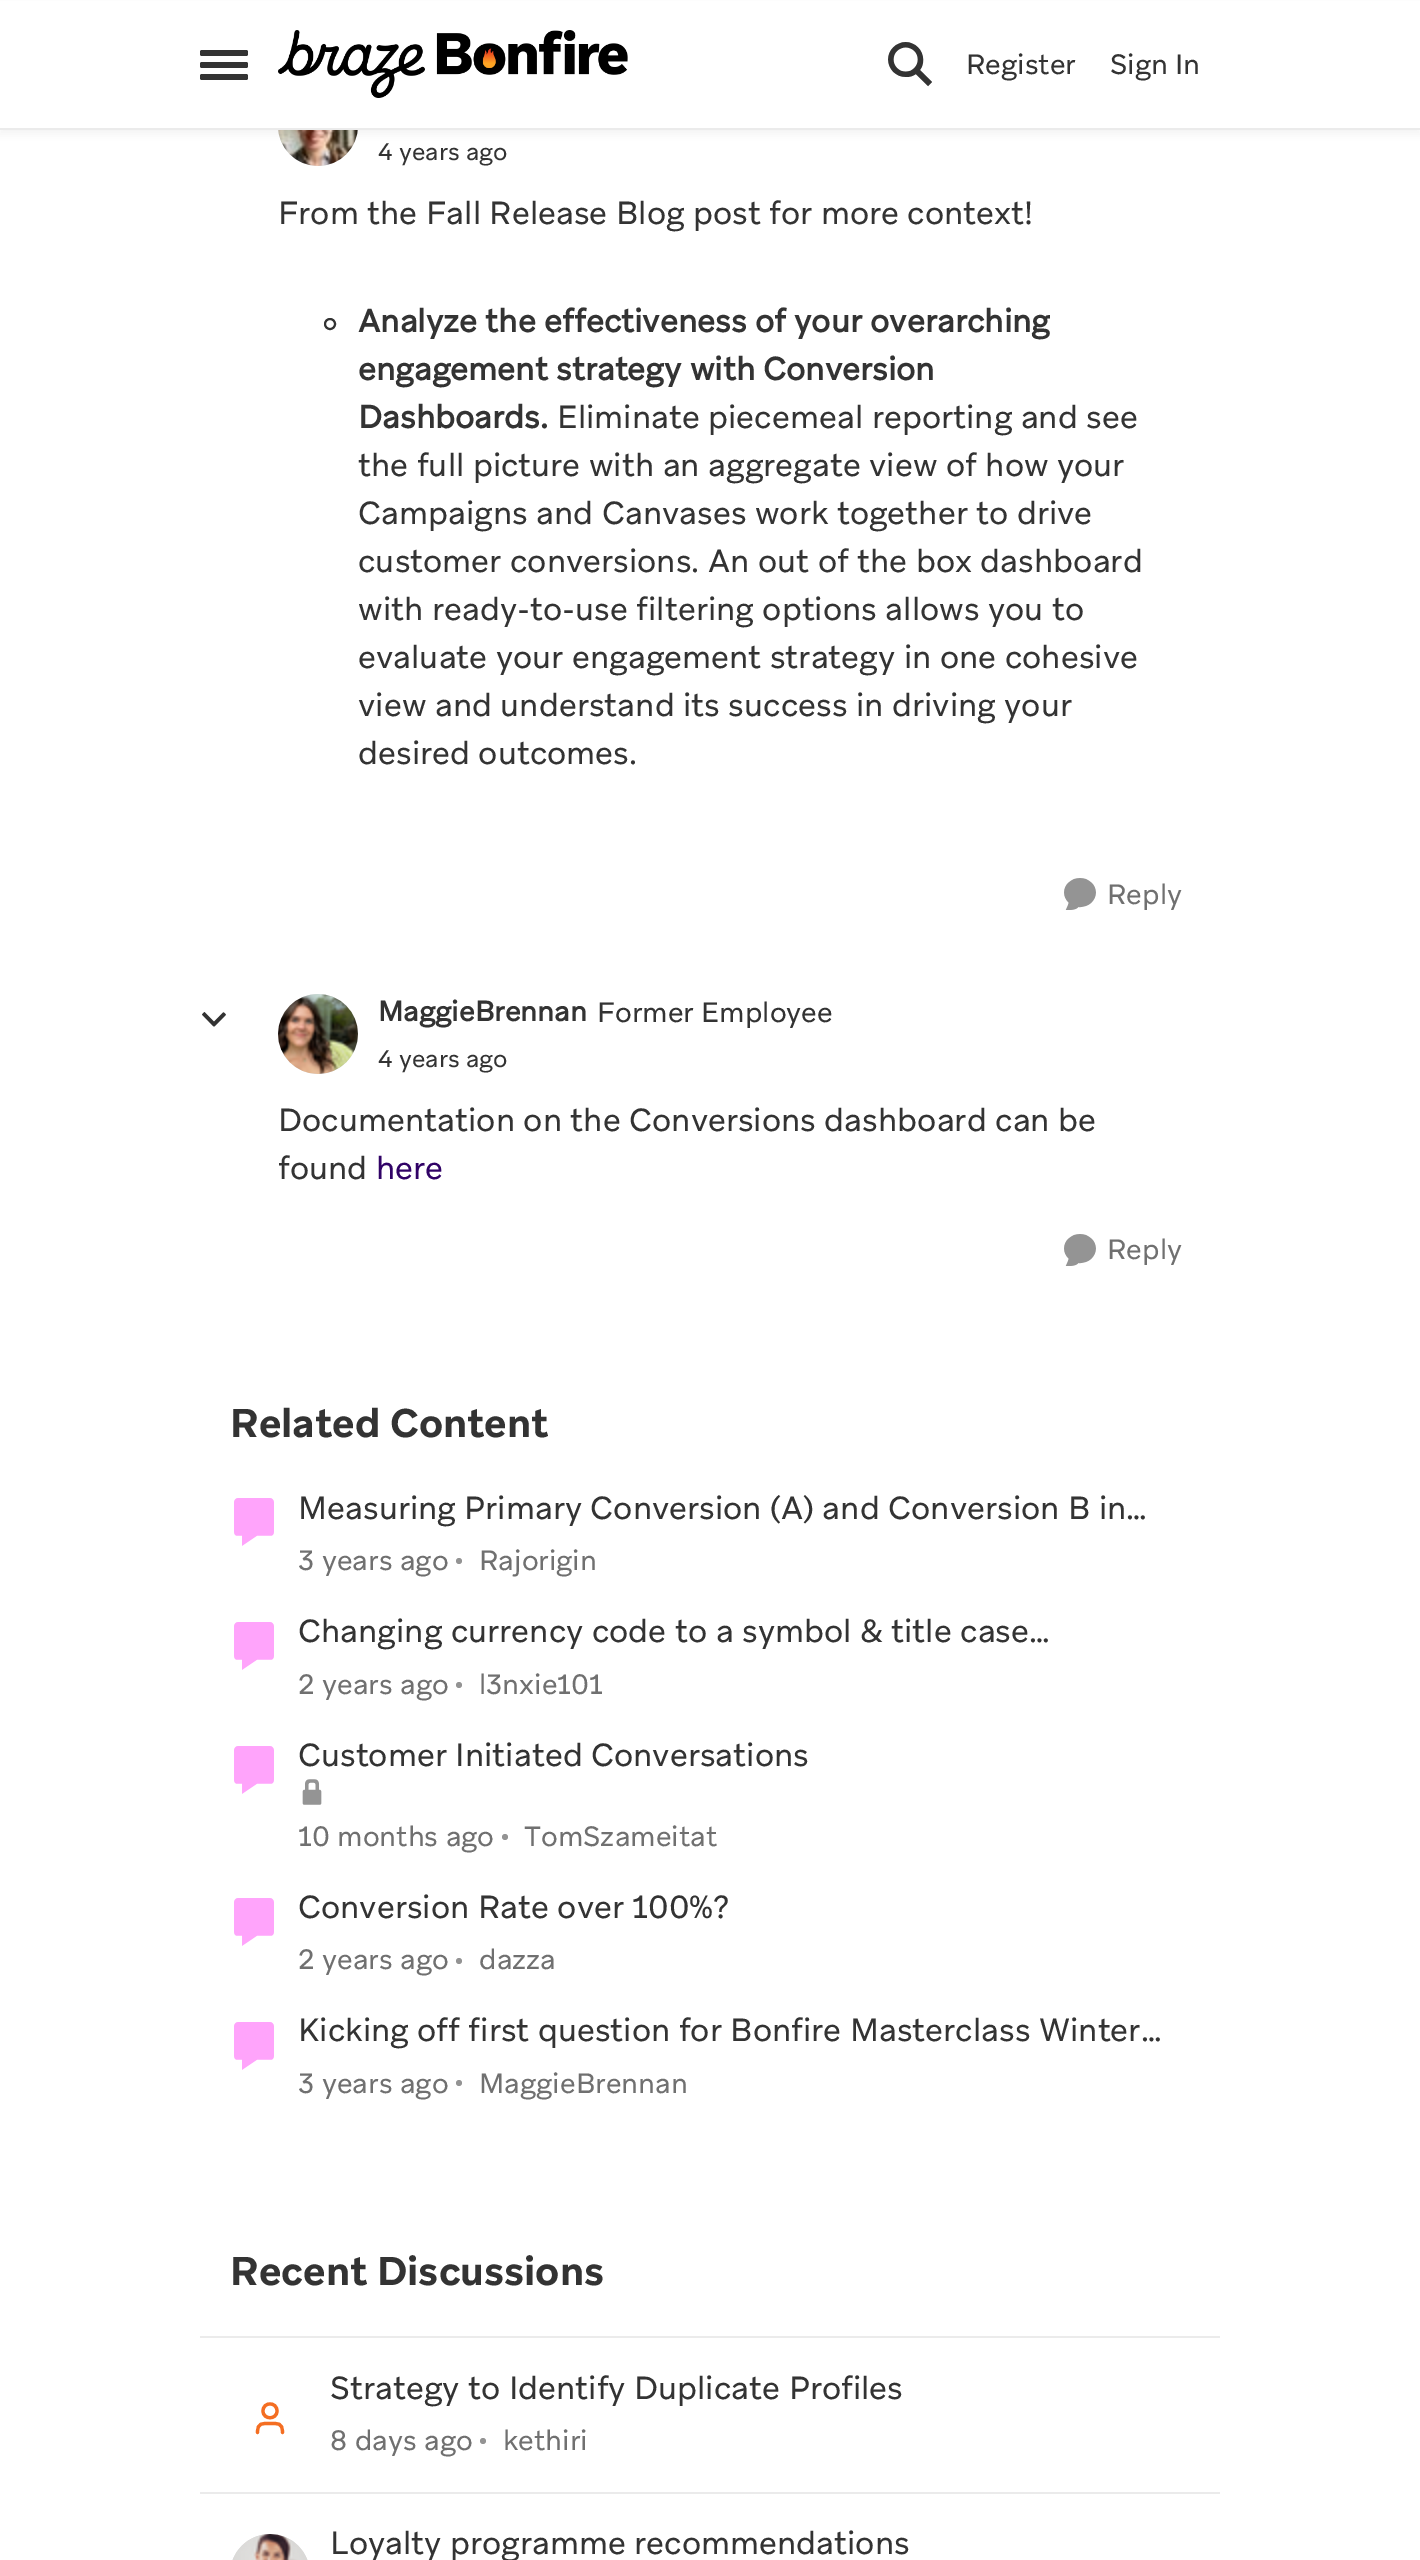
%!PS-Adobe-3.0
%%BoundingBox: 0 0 1420 2560
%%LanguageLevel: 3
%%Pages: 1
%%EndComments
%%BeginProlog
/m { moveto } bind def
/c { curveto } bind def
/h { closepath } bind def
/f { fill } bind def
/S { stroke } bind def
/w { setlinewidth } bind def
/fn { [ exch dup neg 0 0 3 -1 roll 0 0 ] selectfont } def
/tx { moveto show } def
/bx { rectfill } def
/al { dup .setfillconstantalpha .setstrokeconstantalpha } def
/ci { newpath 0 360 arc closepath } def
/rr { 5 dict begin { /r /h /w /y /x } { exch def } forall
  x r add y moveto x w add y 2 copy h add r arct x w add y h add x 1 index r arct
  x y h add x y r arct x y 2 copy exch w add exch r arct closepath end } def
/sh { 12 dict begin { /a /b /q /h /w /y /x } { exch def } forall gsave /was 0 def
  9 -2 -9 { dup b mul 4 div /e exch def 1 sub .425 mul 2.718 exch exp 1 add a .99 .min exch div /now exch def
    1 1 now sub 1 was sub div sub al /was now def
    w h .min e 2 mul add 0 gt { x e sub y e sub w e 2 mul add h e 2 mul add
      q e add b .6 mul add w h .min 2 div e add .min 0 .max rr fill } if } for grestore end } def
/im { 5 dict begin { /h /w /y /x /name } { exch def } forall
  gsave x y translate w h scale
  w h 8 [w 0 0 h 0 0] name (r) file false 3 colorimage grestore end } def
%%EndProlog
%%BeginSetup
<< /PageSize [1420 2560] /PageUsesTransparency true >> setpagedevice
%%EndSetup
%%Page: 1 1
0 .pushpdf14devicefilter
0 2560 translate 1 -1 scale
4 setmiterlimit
1 setgray
0 0 1420 2560 bx
0.851 setgray
318 126 40 ci f
(image2.raw) 278 130 80 36 im
0.2 setgray
0 4 1420 130 0 4 0.06 sh
1 setgray
0 1 1420 127 bx
0.922 setgray
0 128 1420 2 bx
0.2 setgray
200 50 48 6 2 rr f
200 62 48 6 2 rr f
200 74 48 6 2 rr f
(image0.raw) 278 30 350 68 im
(image1.raw) 888 42 44 45 im
/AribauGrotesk-Regular 28 fn
(Register) 966 74 tx
(Sign In) 1110 74 tx
/AribauGrotesk-Regular 24 fn
(4 years ago) 378 160 tx
/AribauGrotesk-Regular 32 fn
(From the Fall Release Blog post for more context!) 278 224 tx
2 w
330 324 5 ci S
/AribauGrotesk-Bold 32 fn
(Analyze the effectiveness of your overarching) 358 332 tx
(engagement strategy with Conversion) 358 380 tx
(Dashboards.) 358 428 tx
/AribauGrotesk-Regular 32 fn
(Eliminate piecemeal reporting and see) 557 428 tx
(the full picture with an aggregate view of how your) 358 476 tx
(Campaigns and Canvases work together to drive) 358 524 tx
(customer conversions. An out of the box dashboard) 358 572 tx
(with ready-to-use filtering options allows you to) 358 620 tx
(evaluate your engagement strategy in one cohesive) 358 668 tx
(view and understand its success in driving your) 358 716 tx
(desired outcomes.) 358 764 tx
(image3.raw) 1064 878 32 32 im
/AribauGrotesk-Regular 28 fn
0.439 setgray
(Reply) 1107 904 tx
(image4.raw) 202 1012 24 15 im
0.851 setgray
318 1034 40 ci f
(image5.raw) 278 994 80 80 im
/AribauGrotesk-Bold 28 fn
0.2 setgray
(MaggieBrennan) 378 1021 tx
/AribauGrotesk-Regular 28 fn
(Former Employee) 597 1022 tx
/AribauGrotesk-Regular 24 fn
(4 years ago) 378 1067 tx
/AribauGrotesk-Regular 32 fn
(Documentation on the Conversions dashboard can be) 278 1131 tx
(found) 278 1179 tx
0.188 0.008 0.4 setrgbcolor
(here) 376 1179 tx
(image3.raw) 1064 1234 32 32 im
/AribauGrotesk-Regular 28 fn
0.439 setgray
(Reply) 1107 1259 tx
/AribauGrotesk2-Bold 40 fn
0.2 setgray
(Related Content) 230 1437 tx
(image6.raw) 234 1498 40 48 im
/AribauGrotesk-Regular 32 fn
(Measuring Primary Conversion \(A\) and Conversion B in…) 298 1519 tx
/AribauGrotesk-Regular 28 fn
0.439 setgray
(3 years ago) 298 1570 tx
0.58 setgray
459 1561 3 ci f
0.439 setgray
(Rajorigin) 479 1570 tx
(image6.raw) 234 1622 40 48 im
/AribauGrotesk-Regular 32 fn
0.2 setgray
(Changing currency code to a symbol & title case…) 298 1642 tx
/AribauGrotesk-Regular 28 fn
0.439 setgray
(2 years ago) 298 1694 tx
0.58 setgray
459 1685 3 ci f
0.439 setgray
(l3nxie101) 479 1694 tx
(image7.raw) 234 1746 40 48 im
/AribauGrotesk-Regular 32 fn
0.2 setgray
(Customer Initiated Conversations) 298 1766 tx
(image8.raw) 302 1779 20 26 im
/AribauGrotesk-Regular 28 fn
0.439 setgray
(10 months ago) 298 1846 tx
0.58 setgray
505 1837 3 ci f
0.439 setgray
(TomSzameitat) 524 1846 tx
(image9.raw) 234 1898 40 48 im
/AribauGrotesk-Regular 32 fn
0.2 setgray
(Conversion Rate over 100%?) 298 1918 tx
/AribauGrotesk-Regular 28 fn
0.439 setgray
(2 years ago) 298 1969 tx
0.58 setgray
459 1961 3 ci f
0.439 setgray
(dazza) 479 1969 tx
(image10.raw) 234 2022 40 48 im
/AribauGrotesk-Regular 32 fn
0.2 setgray
(Kicking off first question for Bonfire Masterclass Winter…) 298 2041 tx
/AribauGrotesk-Regular 28 fn
0.439 setgray
(3 years ago) 298 2093 tx
0.58 setgray
459 2083 3 ci f
0.439 setgray
(MaggieBrennan) 479 2093 tx
0.922 setgray
200 2336 1020 2 bx
/AribauGrotesk2-Bold 40 fn
0.2 setgray
(Recent Discussions) 230 2285 tx
0.922 setgray
200 2492 1020 2 bx
0.957 0.431 0.133 setrgbcolor
3.2 w
1 setlinecap
1 setlinejoin
282.5 2432.5 m 282.5 2422.5 278 2423.5 270 2423.5 c 262 2423.5 257.5 2422.5 257.5 2432.5 c 277 2411 m 277 2420 263 2420 263 2411 c 263 2401.5 277 2401.5 277 2411 c h S
/AribauGrotesk-Regular 32 fn
0.2 setgray
(Strategy to Identify Duplicate Profiles) 330 2399 tx
/AribauGrotesk-Regular 28 fn
0.439 setgray
(8 days ago) 330 2450 tx
0.58 setgray
483 2441 3 ci f
0.439 setgray
(kethiri) 503 2450 tx
0.851 setgray
230 2534 80 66 40 rr f
(image11.raw) 232 2534 76 26 im
/AribauGrotesk-Regular 32 fn
0.2 setgray
(Loyalty programme recommendations) 330 2554 tx
.poppdf14devicefilter showpage
%%EOF
